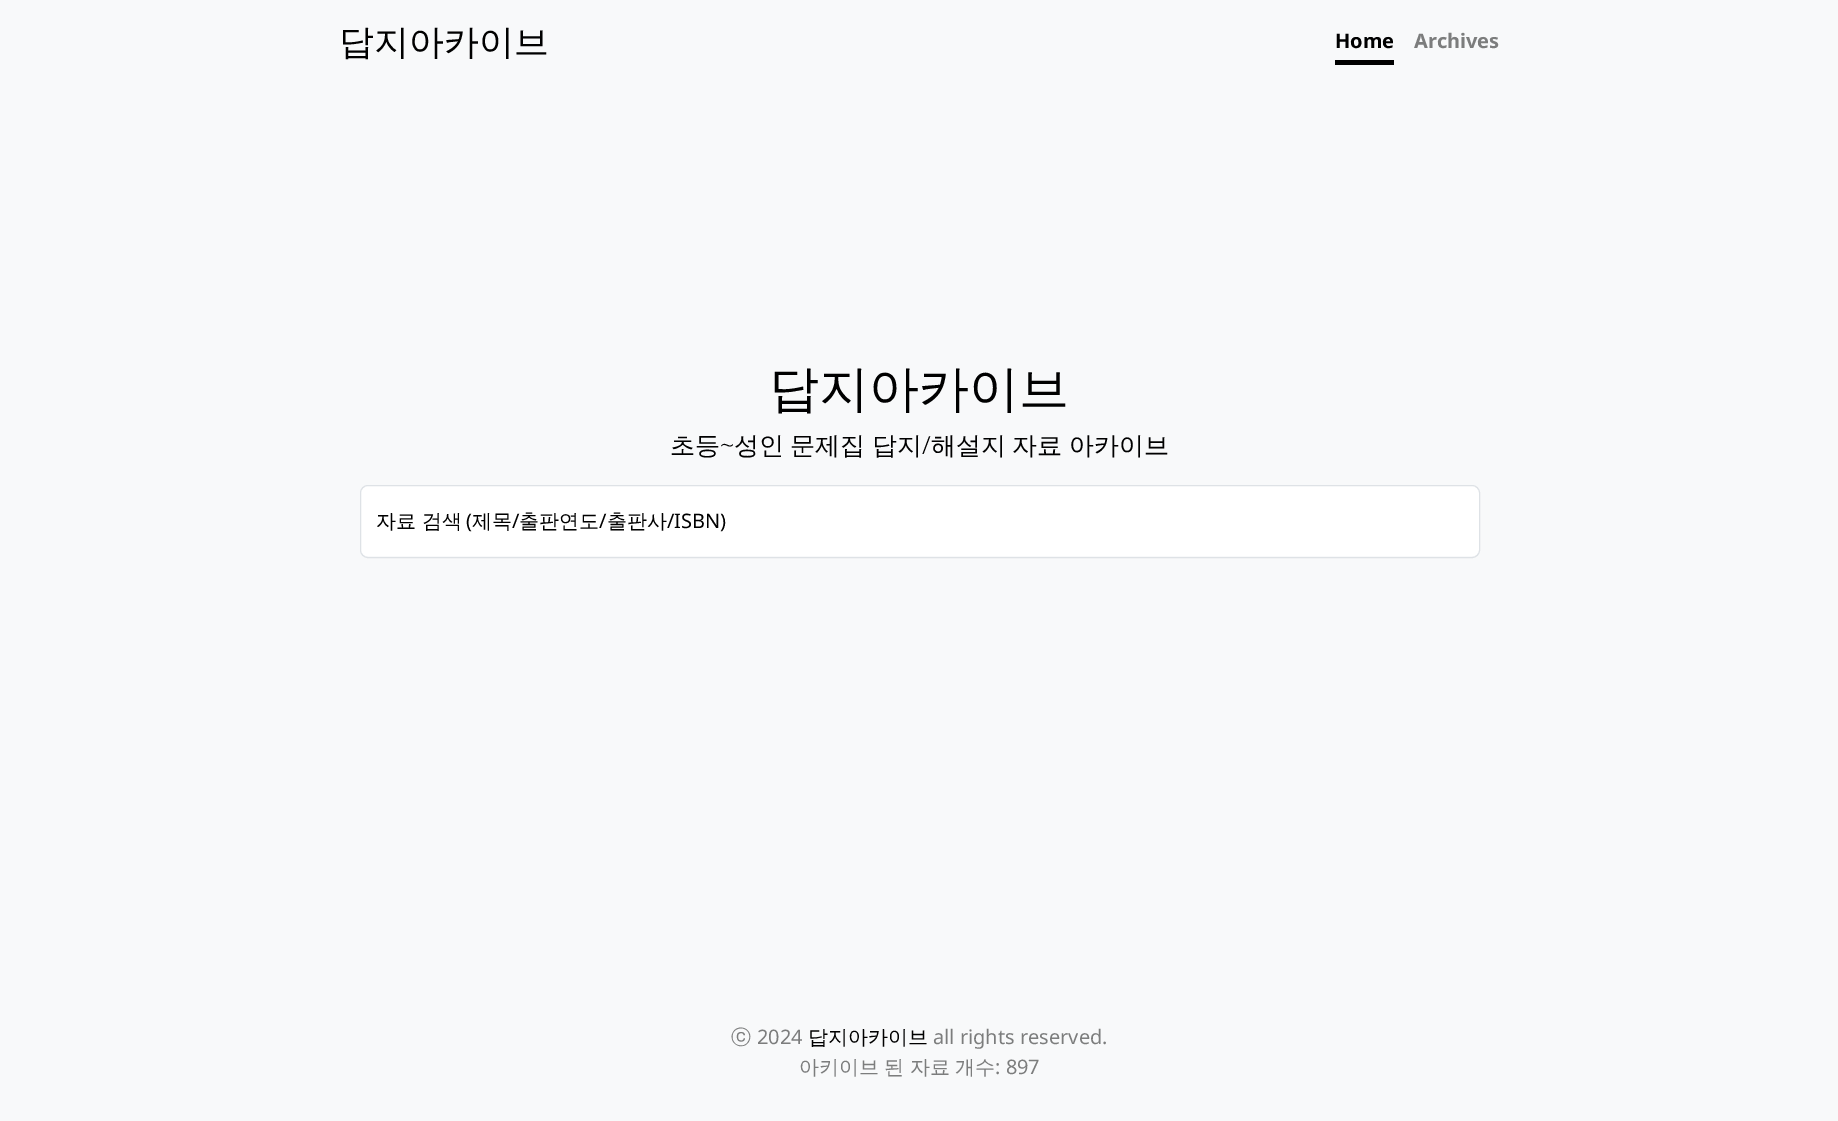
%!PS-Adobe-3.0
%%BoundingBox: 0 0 1838 1121
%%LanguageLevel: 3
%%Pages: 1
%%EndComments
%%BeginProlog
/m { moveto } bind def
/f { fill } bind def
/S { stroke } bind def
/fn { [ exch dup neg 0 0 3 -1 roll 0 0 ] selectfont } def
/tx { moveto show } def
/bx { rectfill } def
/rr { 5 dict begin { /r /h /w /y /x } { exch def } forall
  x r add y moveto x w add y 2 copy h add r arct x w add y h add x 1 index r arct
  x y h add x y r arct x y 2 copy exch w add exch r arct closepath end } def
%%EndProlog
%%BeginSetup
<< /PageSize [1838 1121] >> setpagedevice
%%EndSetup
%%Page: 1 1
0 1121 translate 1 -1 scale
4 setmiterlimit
0.973 0.976 0.98 setrgbcolor
0 0 1838 1121 bx
/WenQuanYiZenHei-Medium 35 fn
0 setgray
(답지아카이브) 339 54 tx
1335 60 59 5 bx
/NotoSans-Bold 20 fn
(Home) 1335 48 tx
0.486 0.49 0.49 setrgbcolor
(Archives) 1414 48 tx
/WenQuanYiZenHei-Medium 50 fn
0 setgray
(답지아카이브) 769 406 tx
/WenQuanYiZenHei-Medium 25 fn
(초등) 670 454 tx
/NotoSans-Light 25 fn
(~) 720 454 tx
/WenQuanYiZenHei-Medium 25 fn
734 454 m -1 0 32 (성인 문제집 답지) widthshow
/NotoSans-Light 25 fn
(/) 922 454 tx
/WenQuanYiZenHei-Medium 25 fn
931 454 m -1 0 32 (해설지 자료 아카이브) widthshow
1 setgray
361 486 1118 70 6 rr f
0.871 0.886 0.902 setrgbcolor
360.5 485.5 1119 72 7.5 rr S
/WenQuanYiZenHei-Medium 20 fn
0 setgray
(자료 검색) 376 528 tx
/NotoSans-Regular 20 fn
(\() 466 528 tx
/WenQuanYiZenHei-Medium 20 fn
(제목) 472 528 tx
/NotoSans-Regular 20 fn
(/) 512 528 tx
/WenQuanYiZenHei-Medium 20 fn
(출판연도) 519 528 tx
/NotoSans-Regular 20 fn
(/) 599 528 tx
/WenQuanYiZenHei-Medium 20 fn
(출판사) 607 528 tx
/NotoSans-Regular 20 fn
(/ISBN\)) 667 528 tx
/WenQuanYiZenHei-Medium 20 fn
0.486 0.49 0.49 setrgbcolor
(ⓒ) 731 1044 tx
/NotoSans-Regular 20 fn
(2024) 757 1044 tx
/WenQuanYiZenHei-Medium 20 fn
0 setgray
(답지아카이브) 808 1044 tx
/NotoSans-Regular 20 fn
0.486 0.49 0.49 setrgbcolor
(all rights reserved.) 933 1044 tx
/WenQuanYiZenHei-Medium 20 fn
(아키이브) 799 1074 tx
(된) 884 1074 tx
(자료) 910 1074 tx
(개수) 955 1074 tx
/NotoSans-Regular 20 fn
(: 897) 995 1074 tx
showpage
%%EOF
